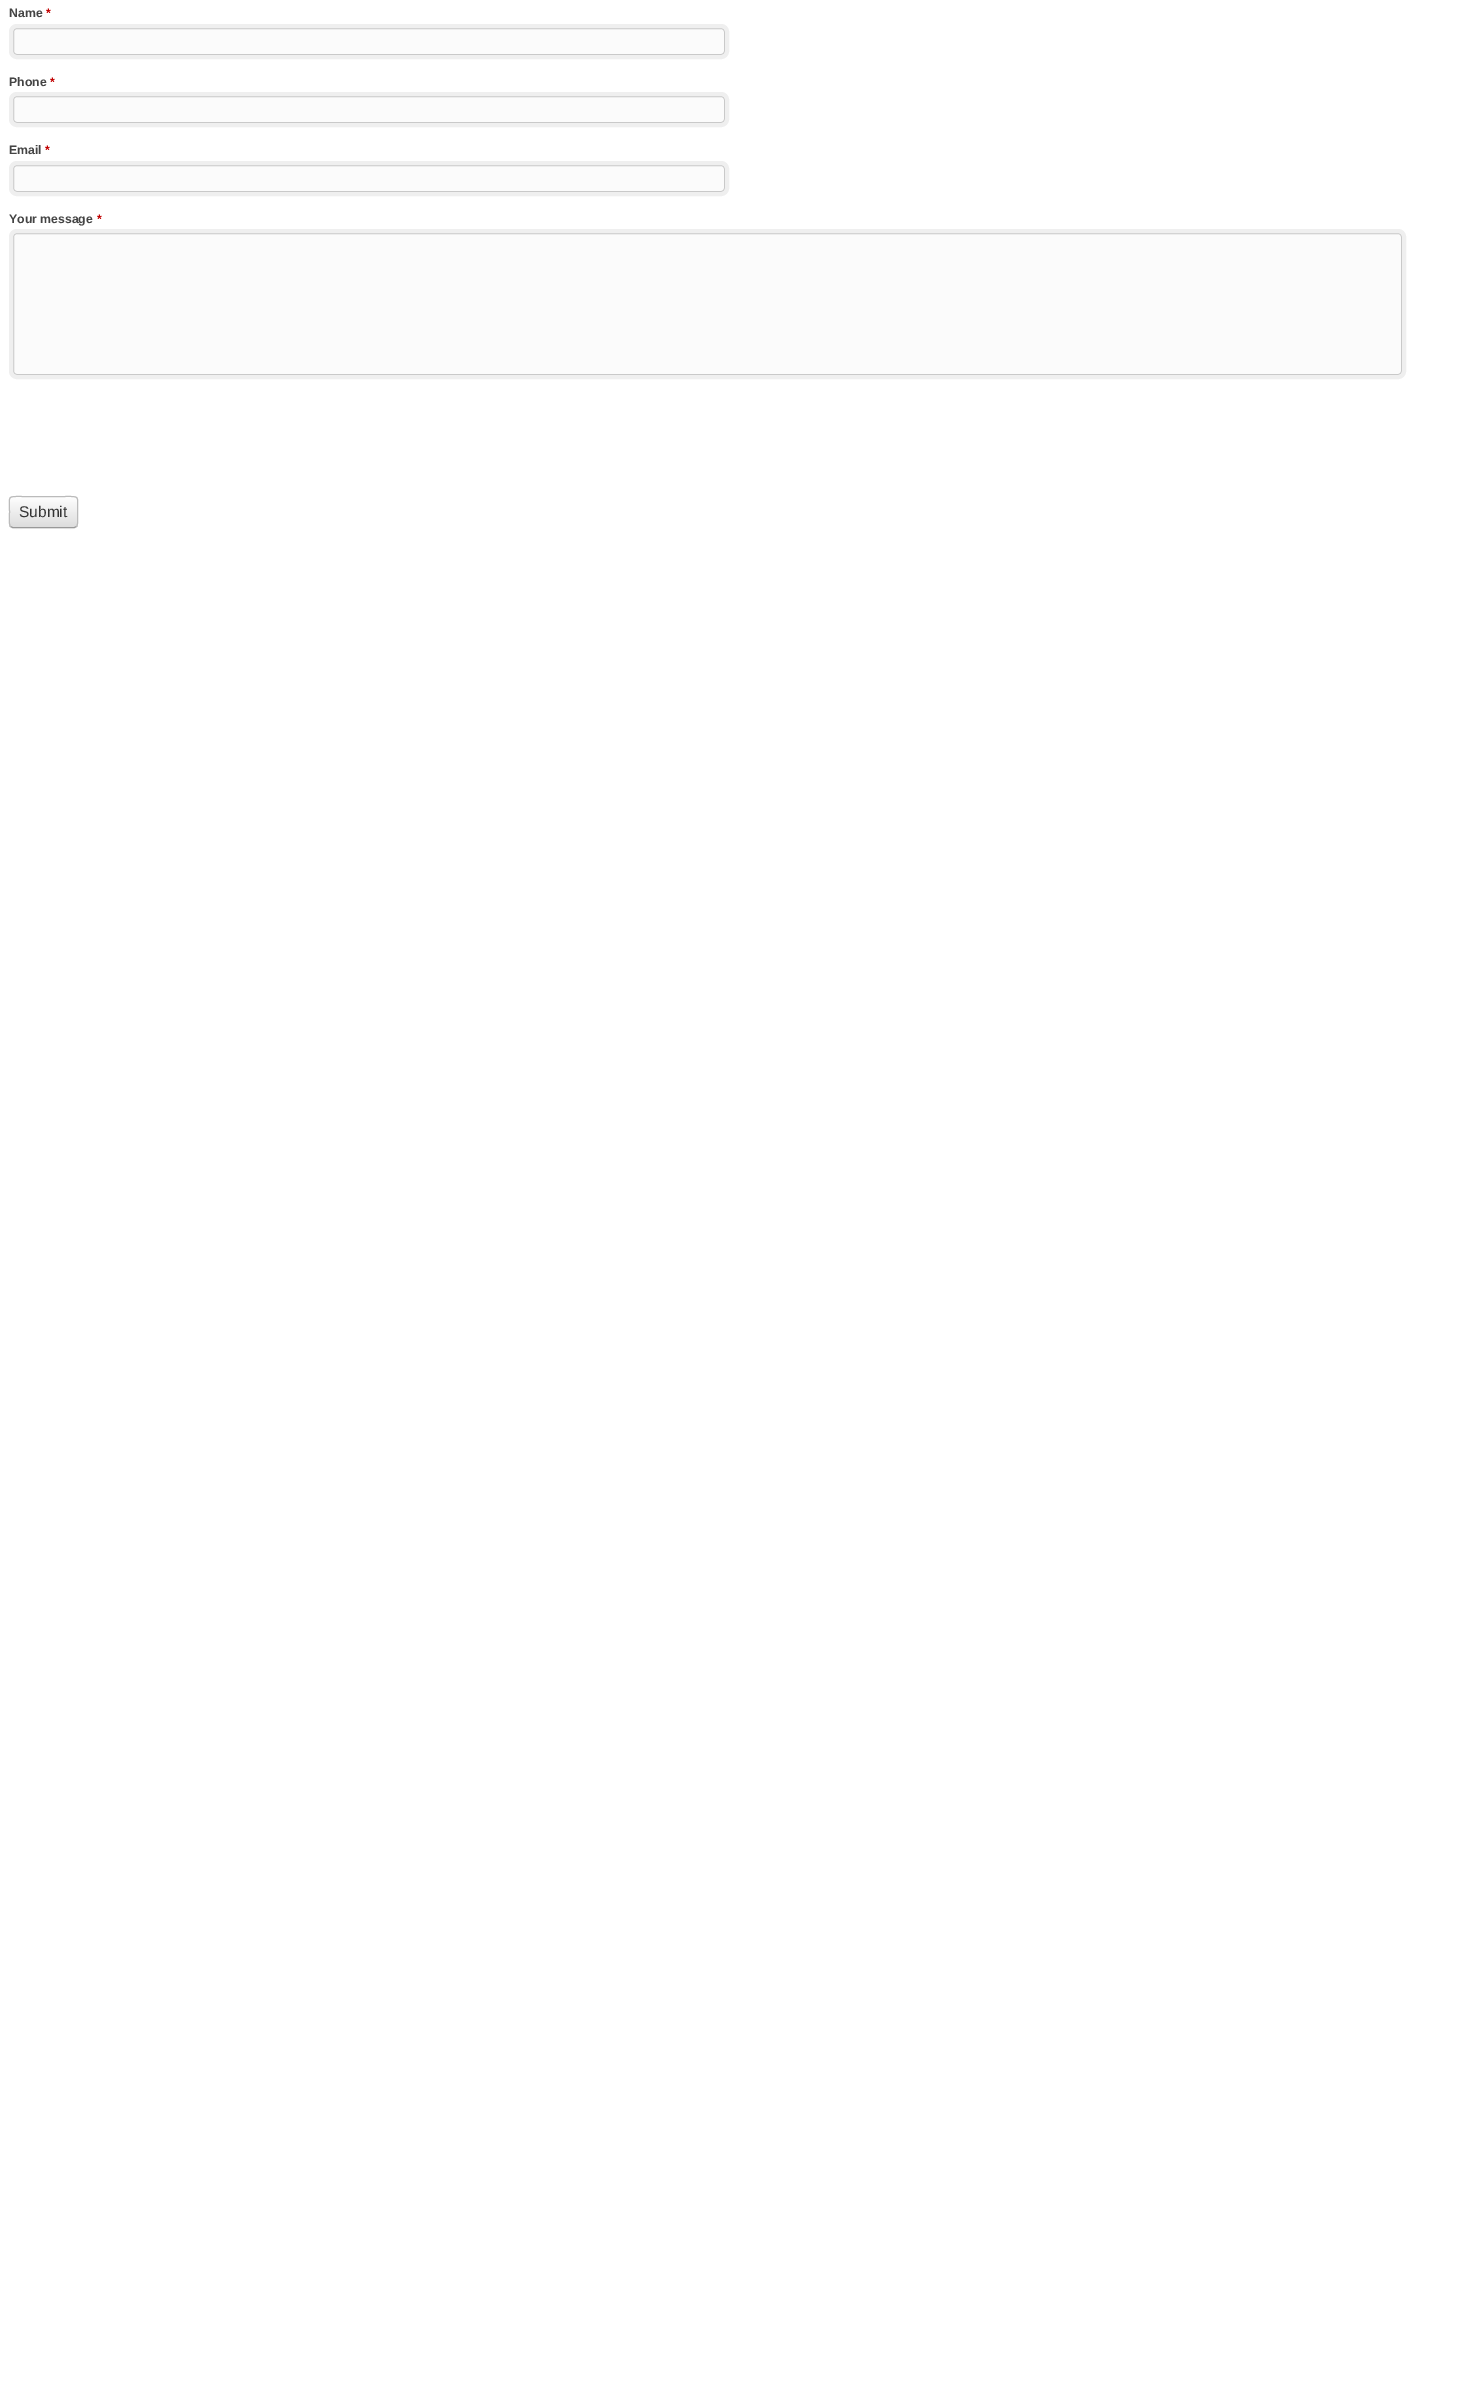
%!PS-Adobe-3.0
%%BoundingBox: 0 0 1459 2396
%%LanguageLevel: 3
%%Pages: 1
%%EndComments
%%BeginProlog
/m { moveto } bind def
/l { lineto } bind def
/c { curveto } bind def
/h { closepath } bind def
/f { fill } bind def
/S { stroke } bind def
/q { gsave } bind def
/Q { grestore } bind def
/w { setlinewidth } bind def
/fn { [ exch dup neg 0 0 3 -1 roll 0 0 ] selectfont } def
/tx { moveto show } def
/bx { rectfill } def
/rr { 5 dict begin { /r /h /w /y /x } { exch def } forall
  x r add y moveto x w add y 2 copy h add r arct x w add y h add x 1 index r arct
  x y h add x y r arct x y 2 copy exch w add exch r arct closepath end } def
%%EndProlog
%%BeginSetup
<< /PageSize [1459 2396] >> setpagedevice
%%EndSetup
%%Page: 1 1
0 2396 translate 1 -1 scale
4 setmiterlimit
1 setgray
0 0 1459 2396 bx
/LiberationSans-Bold 12.25 fn
0.267 setgray
(Name) 9 17 tx
0.757 0 0 setrgbcolor
(*) 46 17 tx
0.984 setgray
9 24 720 35 8 rr f
0.788 setgray
13.5 28.5 711 26 3.5 rr S
0.937 setgray
4 w
11 26 716 31 6 rr S
0.267 setgray
(Phone) 9 86 tx
0.757 0 0 setrgbcolor
(*) 50 86 tx
0.984 setgray
9 92 720 35 8 rr f
0.788 setgray
1 w
13.5 96.5 711 26 3.5 rr S
0.937 setgray
4 w
11 94 716 31 6 rr S
0.267 setgray
(Email) 9 154 tx
0.757 0 0 setrgbcolor
(*) 45 154 tx
0.984 setgray
9 161 720 35 8 rr f
0.788 setgray
1 w
13.5 165.5 711 26 3.5 rr S
0.937 setgray
4 w
11 163 716 31 6 rr S
0.267 setgray
(Your message) 9 223 tx
0.757 0 0 setrgbcolor
(*) 97 223 tx
0.984 setgray
9 229 1397 150 8 rr f
0.788 setgray
1 w
13.5 233.5 1388 141 3.5 rr S
0.937 setgray
4 w
11 231 1393 146 6 rr S
0.973 setgray
9 524 m 9 531 18 529 23 529 c 64 529 l 69 529 78 531 78 524 c 78 526 76 528 74 528 c 13 528 l 11 528 9 526 9 524 c h f
q
9 496 69 32 4 rr clip newpath
q 9 497 m 78 497 l 78 527 l 9 527 l h clip newpath
<< /ShadingType 2 /ColorSpace /DeviceRGB /Coords [10 497 10 527] /Extend [true true] /Function << /FunctionType 2 /Domain [0 1] /C0 [0.996 0.996 0.996] /C1 [0.867 0.867 0.867] /N 1 >> >> shfill Q
Q
0.6 setgray
1 w
76.5 526.5 m 74.5 527.5 l 12.5 527.5 l 10.5 526.5 l S
0.733 setgray
10.5 526.5 m 8.5 524 9.5 515 9.5 512 c 9.5 495 6.5 496.5 23 496.5 c 64 496.5 l 80.5 496.5 77.5 495 77.5 512 c 77.5 515 78.5 524 76.5 526.5 c S
/LiberationSans-Regular 15.5 fn
0.2 setgray
(Submit) 19 517 tx
showpage
%%EOF
